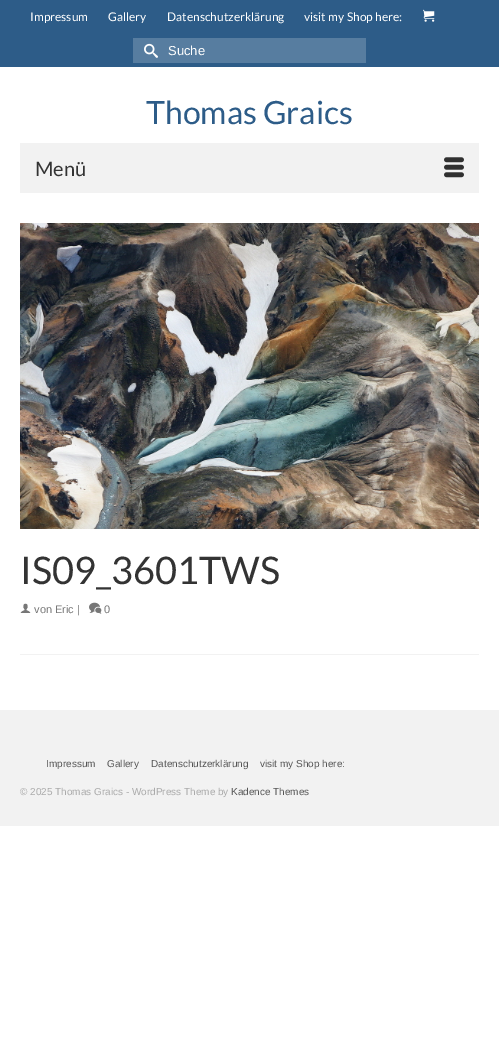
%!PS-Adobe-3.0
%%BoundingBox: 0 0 499 1054
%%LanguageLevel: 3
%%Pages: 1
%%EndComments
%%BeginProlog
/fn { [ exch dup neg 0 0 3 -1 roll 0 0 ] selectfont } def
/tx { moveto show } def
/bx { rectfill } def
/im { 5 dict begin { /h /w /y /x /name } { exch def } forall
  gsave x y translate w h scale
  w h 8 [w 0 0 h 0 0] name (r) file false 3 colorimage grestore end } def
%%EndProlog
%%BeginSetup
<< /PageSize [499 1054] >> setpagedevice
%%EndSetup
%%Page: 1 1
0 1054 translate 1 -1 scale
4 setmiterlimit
1 setgray
0 0 499 1054 bx
0.176 0.361 0.533 setrgbcolor
0 0 499 67 bx
/Lato-Regular 12 fn
1 setgray
(Impressum) 30 21 tx
(Gallery) 108 21 tx
(Datenschutzerklärung) 167 21 tx
(visit my Shop here:) 304 21 tx
(image0.raw) 423 9 12 13 im
0.341 0.49 0.627 setrgbcolor
133 38 233 25 bx
(image1.raw) 144 43 14 15 im
/LiberationSans-Regular 13 fn
1 setgray
(Suche) 168 55 tx
/Lato-Regular 32 fn
0.176 0.361 0.533 setrgbcolor
(Thomas Graics) 146 124 tx
0.949 setgray
20 143 459 50 bx
/Lato-Regular 20 fn
0.2 setgray
(Menü) 35 176 tx
(image2.raw) 444 157 20 21 im
(image3.raw) 20 223 459 306 im
/Lato-Regular 38 fn
(IS09_3601TWS) 20 584 tx
(image4.raw) 20 603 11 10 im
/LiberationSans-Regular 11 fn
0.467 setgray
(von Eric |) 34 613 tx
(image5.raw) 89 602 13 12 im
(0) 104 613 tx
0.949 setgray
20 654 459 1 bx
0 710 499 116 bx
/LiberationSans-Regular 10 fn
0.333 setgray
(Impressum) 46 767 tx
(Gallery) 107 767 tx
(Datenschutzerklärung) 151 767 tx
(visit my Shop here:) 260 767 tx
0.667 setgray
(© 2025 Thomas Graics - WordPress Theme by) 20 795 tx
0.333 setgray
(Kadence Themes) 231 795 tx
showpage
%%EOF
